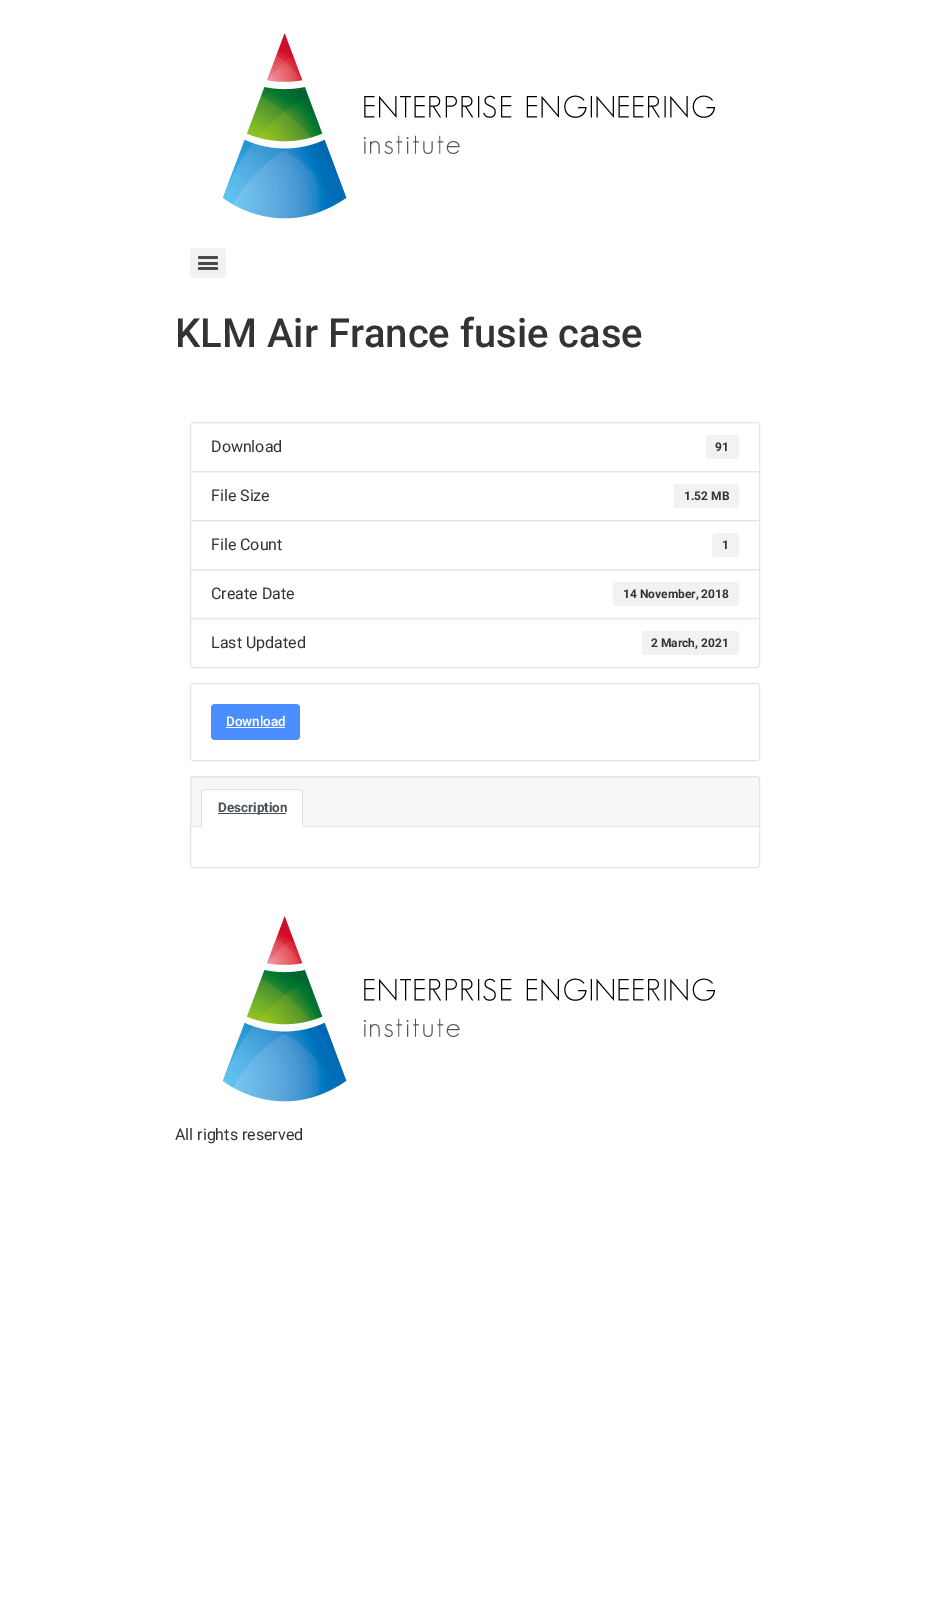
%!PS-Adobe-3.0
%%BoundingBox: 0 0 949 1606
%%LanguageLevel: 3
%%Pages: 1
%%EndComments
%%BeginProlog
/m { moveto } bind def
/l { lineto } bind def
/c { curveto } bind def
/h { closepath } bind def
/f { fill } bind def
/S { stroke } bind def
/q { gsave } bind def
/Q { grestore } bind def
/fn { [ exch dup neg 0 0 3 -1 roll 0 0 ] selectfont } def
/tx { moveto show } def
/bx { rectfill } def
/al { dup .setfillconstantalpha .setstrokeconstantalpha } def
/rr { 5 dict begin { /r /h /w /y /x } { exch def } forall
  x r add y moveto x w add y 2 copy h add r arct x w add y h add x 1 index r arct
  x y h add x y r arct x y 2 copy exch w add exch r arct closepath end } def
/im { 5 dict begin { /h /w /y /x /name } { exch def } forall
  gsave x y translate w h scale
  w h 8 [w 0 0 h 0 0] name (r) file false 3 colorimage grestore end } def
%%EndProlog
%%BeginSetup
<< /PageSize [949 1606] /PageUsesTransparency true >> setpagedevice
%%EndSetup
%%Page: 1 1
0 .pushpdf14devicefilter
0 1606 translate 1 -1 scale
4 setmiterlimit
1 setgray
0 0 949 1606 bx
(image0.raw) 223 33 492 186 im
0.949 setgray
190 248 36 30 3 rr f
0.286 0.298 0.31 setrgbcolor
198 262 20 3 1.5 rr f
198 256 20 3 1.5 rr f
198 267 20 3 1.5 rr f
/Roboto-Medium 40 fn
0.2 setgray
(KLM Air France fusie case) 175 347 tx
0.898 setgray
194 422.5 m 756 422.5 l 758 422.5 759.5 424 759.5 426 c 759.5 471.5 l 190.5 471.5 l 190.5 426 l 190.5 424 192 422.5 194 422.5 c h S
/Roboto-Regular 16 fn
0.2 setgray
(Download) 211 452 tx
0.949 setgray
706 435 33 24 3 rr f
/Roboto-Bold 12 fn
0.2 setgray
(91) 715 451 tx
0.898 setgray
190.5 471.5 569 49 rectstroke
/Roboto-Regular 16 fn
0.2 setgray
(File Size) 211 501 tx
0.949 setgray
674 484 65 24 3 rr f
/Roboto-Bold 12 fn
0.2 setgray
(1.52 MB) 684 500 tx
0.898 setgray
190.5 520.5 569 49 rectstroke
/Roboto-Regular 16 fn
0.2 setgray
(File Count) 211 550 tx
0.949 setgray
712 533 27 24 3 rr f
/Roboto-Bold 12 fn
0.2 setgray
(1) 722 549 tx
0.898 setgray
190.5 569.5 569 49 rectstroke
/Roboto-Regular 16 fn
0.2 setgray
(Create Date) 211 599 tx
0.949 setgray
613 582 126 24 3 rr f
/Roboto-Bold 12 fn
0.2 setgray
(14 November, 2018) 623 598 tx
1 setgray
190.5 618.5 m 759.5 618.5 l 759.5 664 l 759.5 666 758 667.5 756 667.5 c 194 667.5 l 192 667.5 190.5 666 190.5 664 c h q f Q
0.898 setgray
S
/Roboto-Regular 16 fn
0.2 setgray
(Last Updated) 211 648 tx
0.949 setgray
642 631 97 24 3 rr f
/Roboto-Bold 12 fn
0.2 setgray
(2 March, 2021) 651 647 tx
0.898 setgray
190.5 683.5 569 77 2.5 rr S
0.29 0.557 1 setrgbcolor
211 704 89 36 4 rr f
/Roboto-SemiBold 13.5 fn
1 setgray
(Download) 226 726 tx
226 727 59 1 bx
0.898 setgray
190.5 776.5 569 91 2.5 rr S
0.03 al
0 setgray
191 777 568 49 bx
1 al
0.898 setgray
191 826 568 1 bx
1 setgray
205 789 m 299 789 l 301 789 303 791 303 793 c 303 827 l 201 827 l 201 793 l 201 791 203 789 205 789 c h f
0.871 0.886 0.902 setrgbcolor
205 789 m 202 790 l 203 791 l 205 790 l 299 790 l 301 791 l 302 790 l 299 789 l h f
303 827 m 303 793 l 303 792 302.5 791 302 790 c 301 791 l 302 791 302 792 302 793 c 302 826 l h f
1 setgray
303 827 m 302 826 l 202 826 l 201 827 l h f
0.871 0.886 0.902 setrgbcolor
201 827 m 202 826 l 202 793 l 202 792 202 791 203 791 c 202 790 l 201.5 791 201 792 201 793 c h f
0.286 0.314 0.341 setrgbcolor
218 813 68 1 bx
/Roboto-Bold 13.5 fn
(Description) 218 812 tx
(image0.raw) 223 916 492 186 im
/Roboto-Regular 16 fn
0.2 setgray
(All rights reserved) 175 1140 tx
.poppdf14devicefilter showpage
%%EOF
